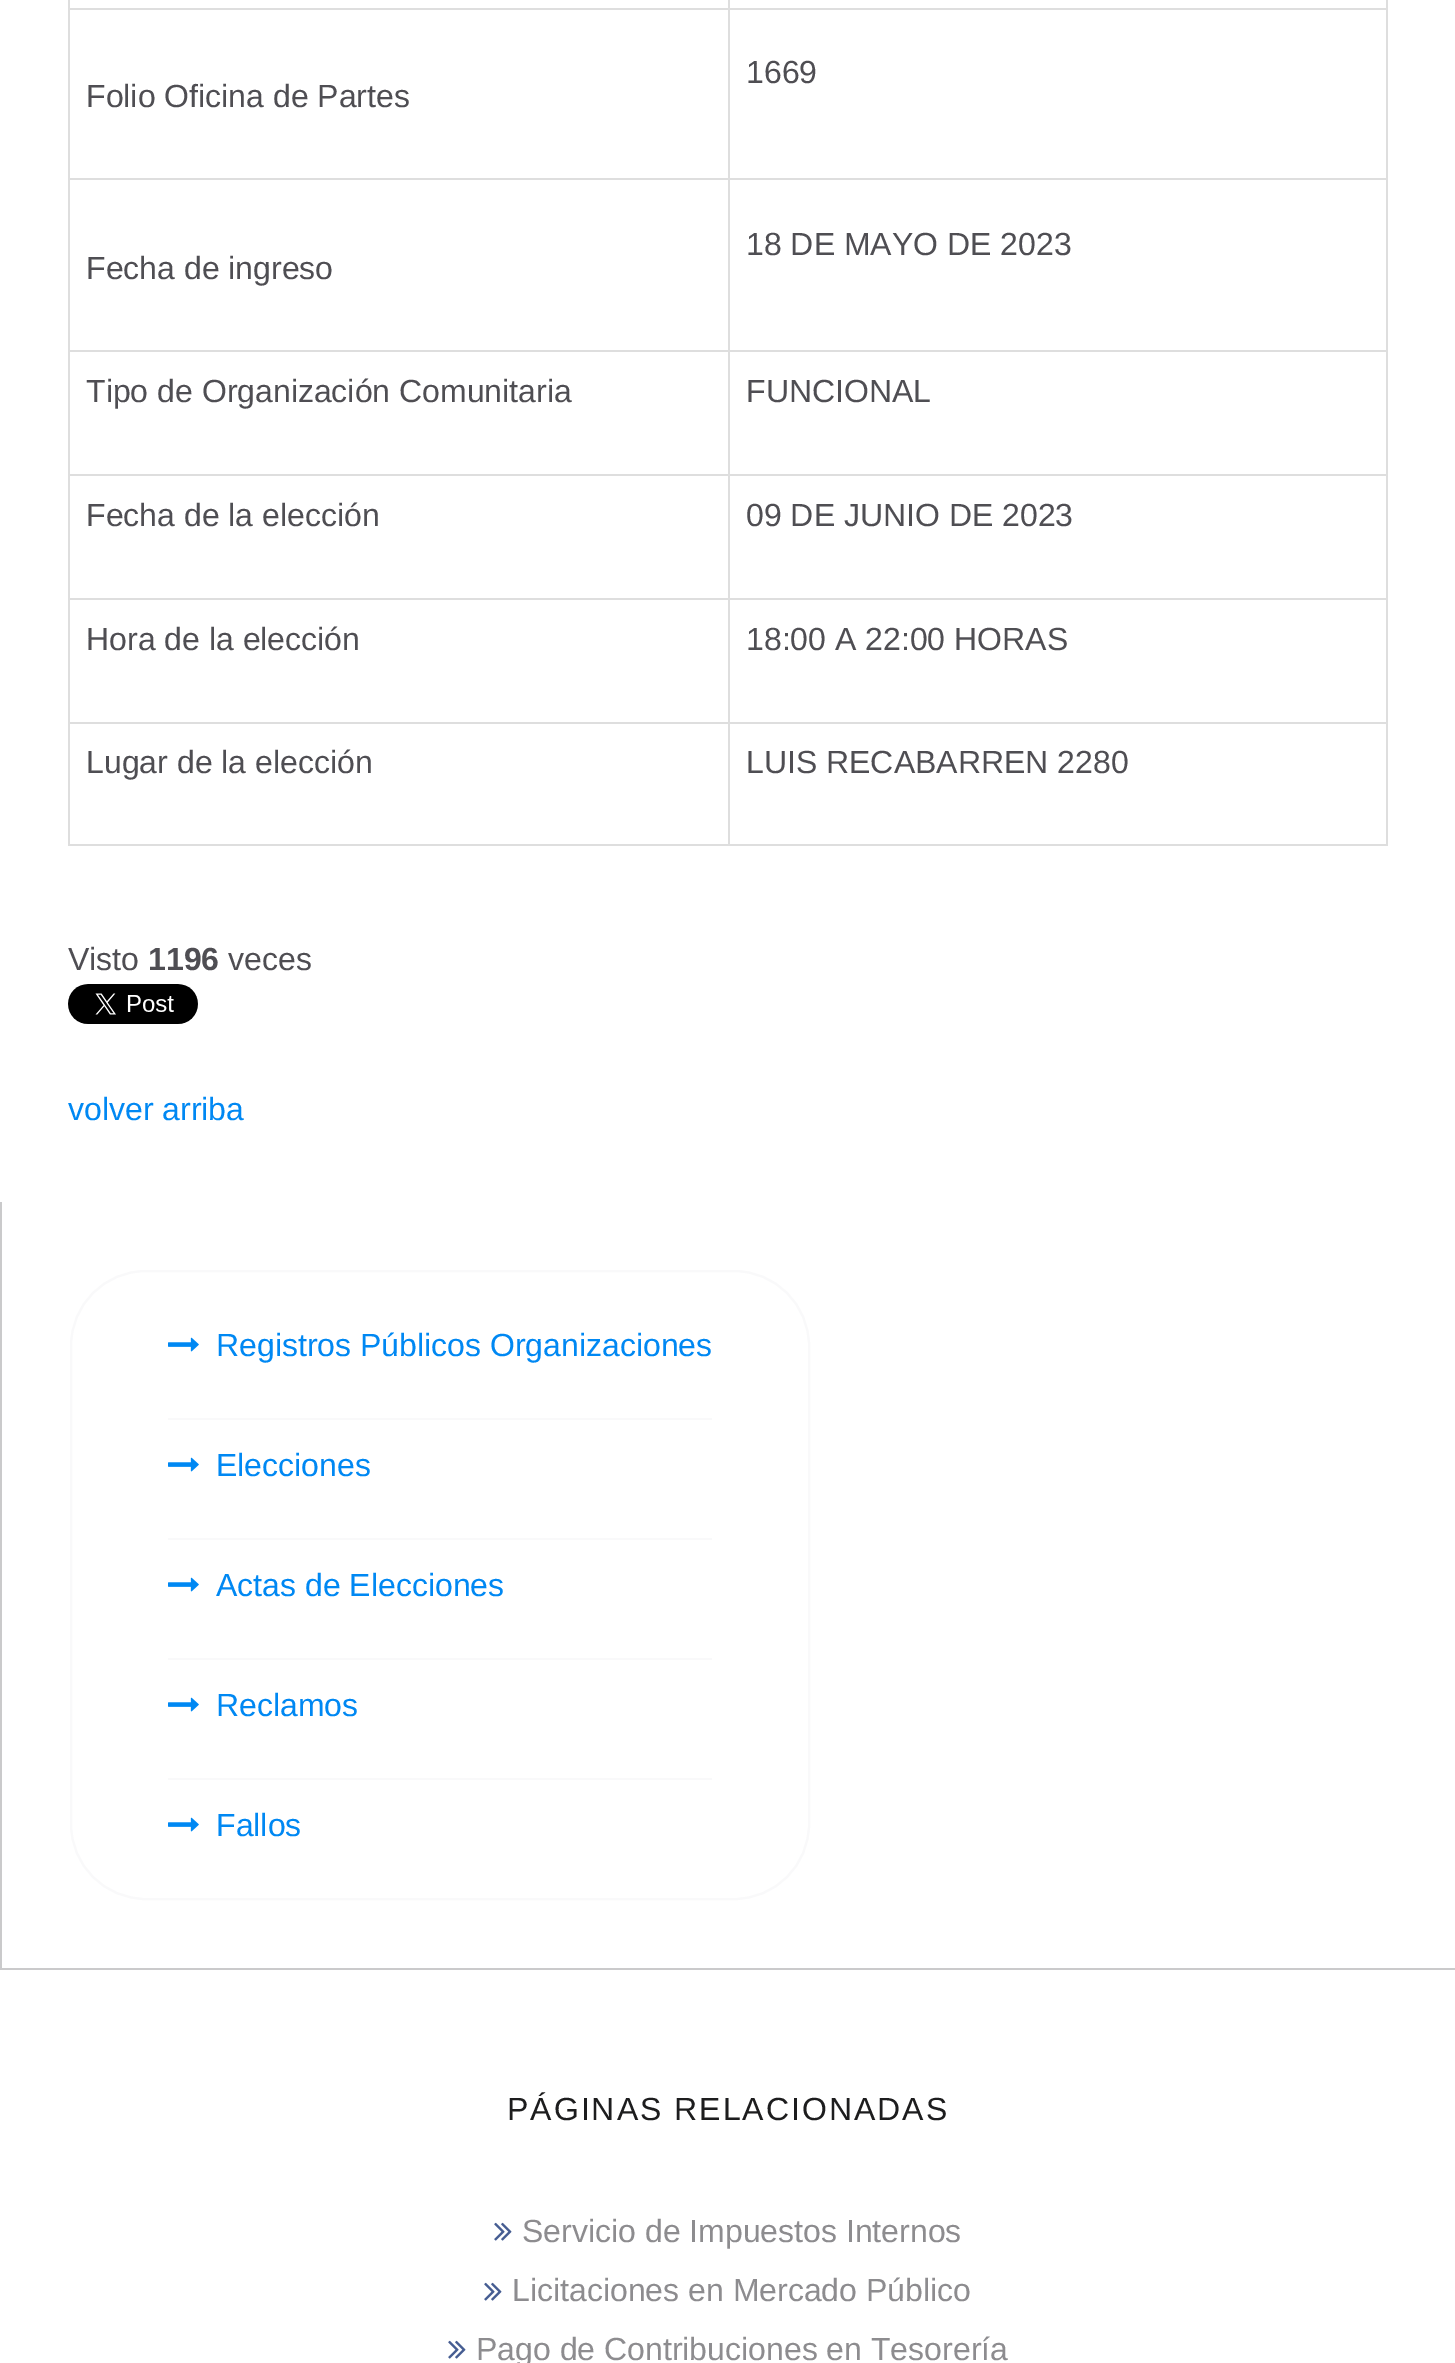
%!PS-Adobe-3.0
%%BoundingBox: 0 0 1455 2363
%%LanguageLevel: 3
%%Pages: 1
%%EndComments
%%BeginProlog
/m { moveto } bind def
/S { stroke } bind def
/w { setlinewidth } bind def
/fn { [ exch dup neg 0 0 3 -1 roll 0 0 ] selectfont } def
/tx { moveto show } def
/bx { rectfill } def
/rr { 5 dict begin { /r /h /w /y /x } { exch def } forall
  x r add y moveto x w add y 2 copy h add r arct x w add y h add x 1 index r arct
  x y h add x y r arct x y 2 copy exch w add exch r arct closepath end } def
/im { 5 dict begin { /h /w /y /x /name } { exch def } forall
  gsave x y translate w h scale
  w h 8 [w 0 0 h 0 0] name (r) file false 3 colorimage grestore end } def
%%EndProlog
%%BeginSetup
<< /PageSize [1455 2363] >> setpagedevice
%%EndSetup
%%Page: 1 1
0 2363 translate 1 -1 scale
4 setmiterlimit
1 setgray
0 0 1455 2363 bx
0.871 setgray
1386 0 2 846 bx
68 844 1320 2 bx
68 0 2 846 bx
728 8 660 2 bx
728 178 660 2 bx
728 350 660 2 bx
728 474 660 2 bx
728 598 660 2 bx
728 722 660 2 bx
728 722 2 124 bx
68 722 662 2 bx
728 598 2 126 bx
68 598 662 2 bx
728 474 2 126 bx
68 474 662 2 bx
728 350 2 126 bx
68 350 662 2 bx
728 178 2 174 bx
68 178 662 2 bx
728 8 2 172 bx
68 8 662 2 bx
728 0 2 10 bx
/LiberationSans-Regular 32 fn
0.31 0.306 0.325 setrgbcolor
(1669) 746 83 tx
(Folio Oficina de Partes) 86 107 tx
(18 DE MAYO DE 2023) 746 255 tx
(Fecha de ingreso) 86 279 tx
(Tipo de Organización Comunitaria) 86 402 tx
(FUNCIONAL) 746 402 tx
(Fecha de la elección) 86 526 tx
(09 DE JUNIO DE 2023) 746 526 tx
(Hora de la elección) 86 650 tx
(18:00 A 22:00 HORAS) 746 650 tx
(Lugar de la elección) 86 773 tx
(LUIS RECABARREN 2280) 746 773 tx
(Visto) 68 970 tx
/LiberationSans-Bold 32 fn
(1196) 148 970 tx
/LiberationSans-Regular 32 fn
(veces) 228 970 tx
(image0.raw) 68 984 130 40 im
0 0.533 0.953 setrgbcolor
(volver arriba) 68 1120 tx
0.792 0.792 0.796 setrgbcolor
0 1202 2 766 bx
0.976 0.976 0.98 setrgbcolor
2 w
71 1271 738 628 75 rr S
168 1418 544 2 bx
(image1.raw) 168 1337 31 15 im
0 0.533 0.953 setrgbcolor
(Registros Públicos Organizaciones) 216 1356 tx
0.976 0.976 0.98 setrgbcolor
168 1538 544 2 bx
(image1.raw) 168 1457 31 15 im
0 0.533 0.953 setrgbcolor
(Elecciones) 216 1476 tx
0.976 0.976 0.98 setrgbcolor
168 1658 544 2 bx
(image1.raw) 168 1577 31 15 im
0 0.533 0.953 setrgbcolor
(Actas de Elecciones) 216 1596 tx
0.976 0.976 0.98 setrgbcolor
168 1778 544 2 bx
(image1.raw) 168 1697 31 15 im
0 0.533 0.953 setrgbcolor
(Reclamos) 216 1716 tx
(image1.raw) 168 1817 31 15 im
(Fallos) 216 1836 tx
0.792 0.792 0.796 setrgbcolor
0 1968 1455 2 bx
0.114 0.114 0.118 setrgbcolor
507 2120 m 2 0 (PÁGINAS RELACIONADAS) ashow
(image2.raw) 494 2222 18 19 im
0.553 0.549 0.561 setrgbcolor
(Servicio de Impuestos Internos) 522 2242 tx
(image2.raw) 484 2282 18 19 im
(Licitaciones en Mercado Público) 512 2301 tx
(image2.raw) 448 2340 18 19 im
(Pago de Contribuciones en Tesorería) 476 2360 tx
showpage
%%EOF
